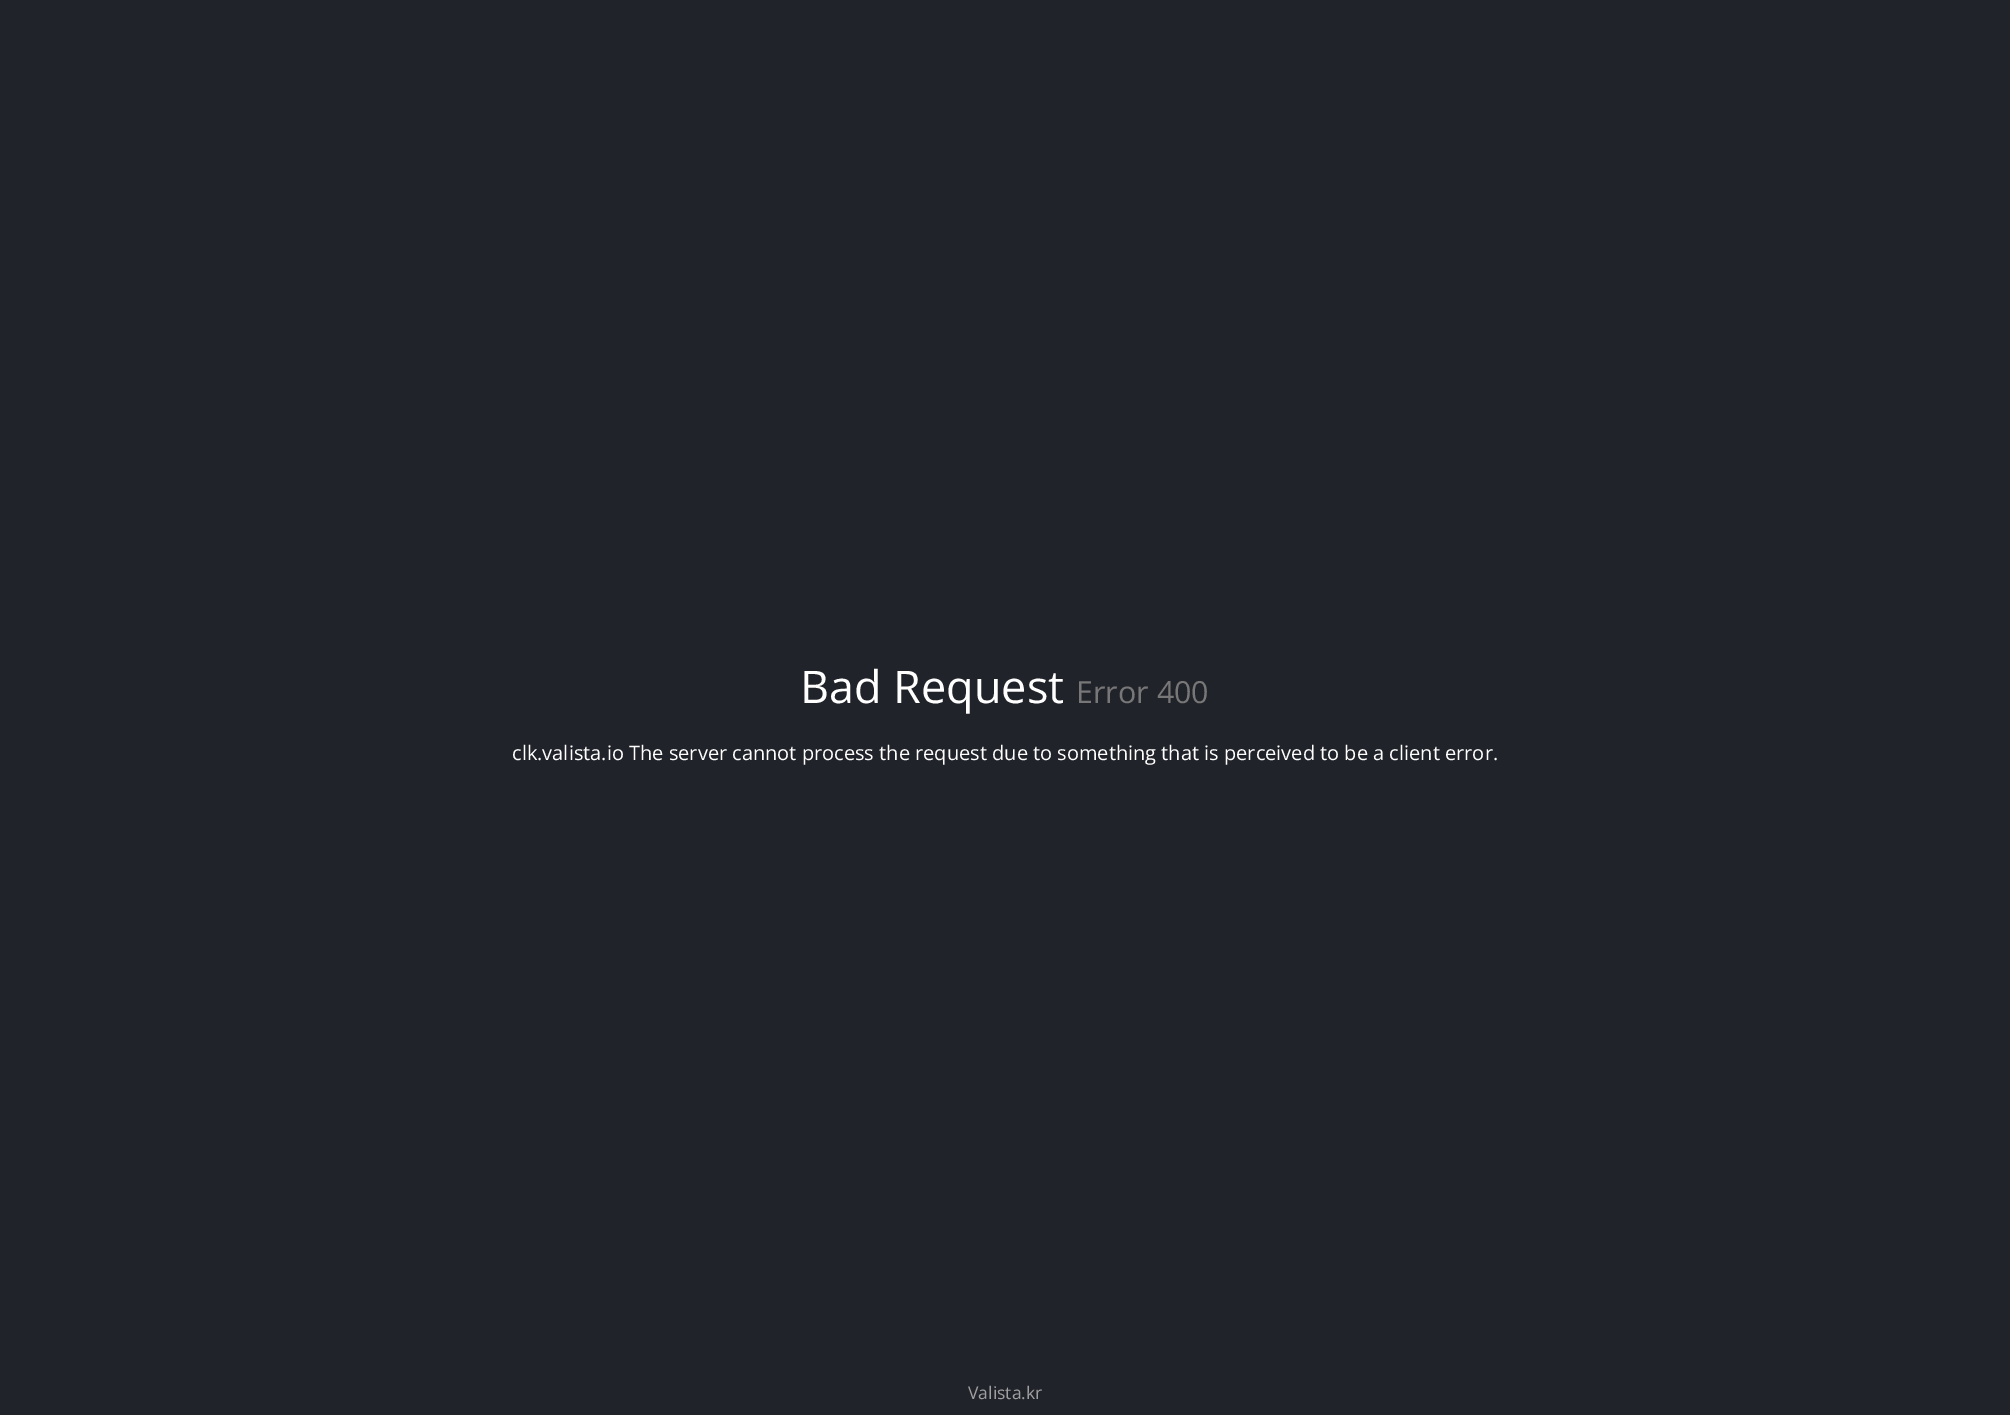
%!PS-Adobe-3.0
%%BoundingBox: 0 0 2010 1415
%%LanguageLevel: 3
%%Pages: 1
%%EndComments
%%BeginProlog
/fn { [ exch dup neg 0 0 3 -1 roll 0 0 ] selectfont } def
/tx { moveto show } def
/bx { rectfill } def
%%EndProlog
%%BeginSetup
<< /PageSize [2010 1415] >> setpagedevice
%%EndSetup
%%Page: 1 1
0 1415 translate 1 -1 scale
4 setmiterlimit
0.129 0.137 0.165 setrgbcolor
0 0 2010 1415 bx
/OpenSans-Regular 45 fn
1 setgray
(Bad Request) 800 703 tx
/OpenSans-Regular 30.5 fn
0.467 setgray
(Error 400) 1076 703 tx
/OpenSans-Regular 20 fn
1 setgray
(clk.valista.io The server cannot process the request due to something that is perceived to be a client error.) 512 760 tx
/OpenSans-Regular 17.5 fn
0.627 setgray
(Valista.kr) 968 1399 tx
showpage
%%EOF
